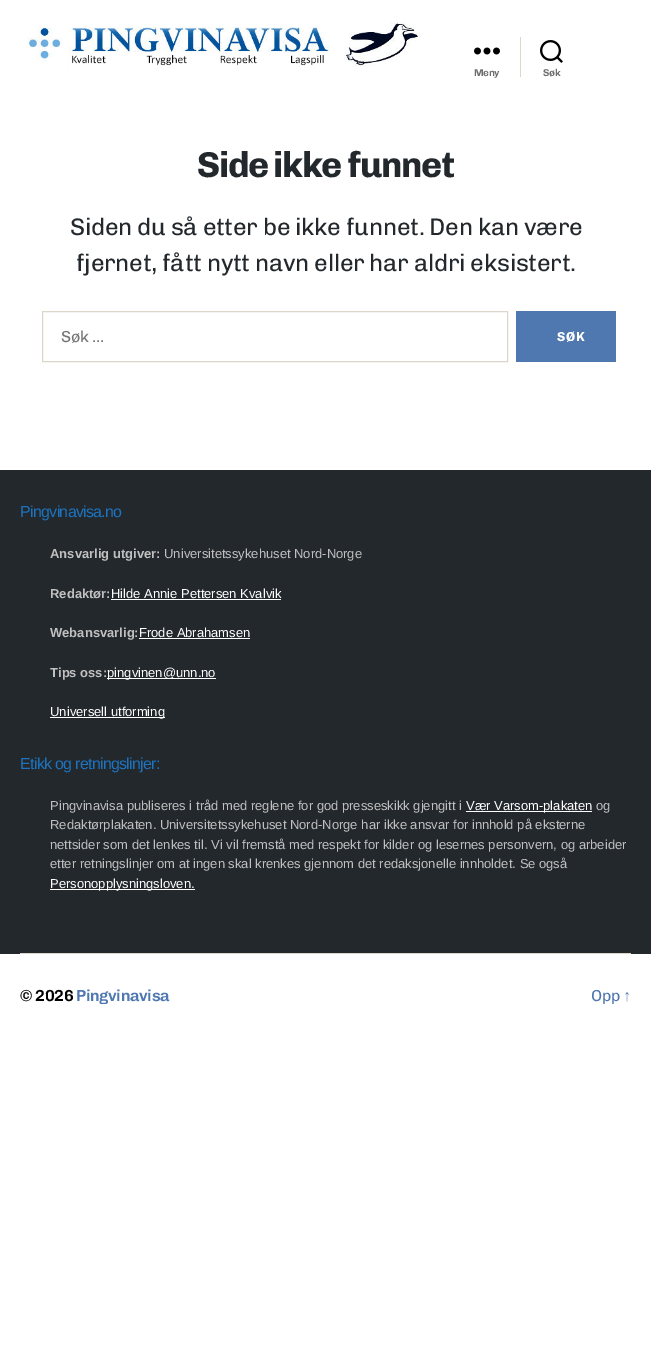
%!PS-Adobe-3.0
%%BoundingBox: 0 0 651 1354
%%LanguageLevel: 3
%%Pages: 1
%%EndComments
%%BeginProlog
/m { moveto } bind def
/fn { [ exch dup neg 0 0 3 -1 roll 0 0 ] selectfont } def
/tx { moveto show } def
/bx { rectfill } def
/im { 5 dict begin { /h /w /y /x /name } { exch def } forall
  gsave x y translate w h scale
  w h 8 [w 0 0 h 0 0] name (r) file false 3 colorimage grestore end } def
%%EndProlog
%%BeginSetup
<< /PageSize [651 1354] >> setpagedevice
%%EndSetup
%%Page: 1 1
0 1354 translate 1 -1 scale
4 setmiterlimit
1 setgray
0 0 651 1354 bx
(image0.raw) 27 22 394 45 im
(image1.raw) 474 47 26 8 im
/Chivo-SemiBold 10 fn
0.427 setgray
474 76 m -0.35 0 (Meny) ashow
0.863 0.843 0.792 setrgbcolor
520 37 1 40 bx
(image2.raw) 540 40 23 23 im
0.427 setgray
543 76 m -0.35 0 (Søk) ashow
/Chivo-Bold 36 fn
0.137 0.157 0.176 setrgbcolor
197 177 m -1.5 0 (Side ikke funnet) ashow
/Chivo-Regular 24 fn
70 235 m -0.35 0 (Siden du så etter be ikke funnet. Den kan være) ashow
76 271 m -0.35 0 (fjernet, fått nytt navn eller har aldri eksistert.) ashow
0.863 0.843 0.792 setrgbcolor
42.5 311.5 465 50 rectstroke
/Chivo-Regular 16 fn
0.459 setgray
61 342 m -0.25 0 (Søk …) ashow
0.314 0.471 0.69 setrgbcolor
516 311 100 51 bx
/Chivo-Bold 13 fn
1 setgray
557 341 m 0.5 0 (SØK) ashow
0.137 0.157 0.176 setrgbcolor
0 470 651 484 bx
0.863 0.843 0.792 setrgbcolor
20 953 611 1 bx
/LiberationSans-Regular 16 fn
0.118 0.451 0.745 setrgbcolor
20 517 m -0.7 0 (Pingvinavisa.no) ashow
/LiberationSans-Bold 13 fn
0.753 setgray
(Ansvarlig utgiver:) 50 558 tx
/LiberationSans-Regular 13 fn
(Universitetssykehuset Nord-Norge) 164 558 tx
/LiberationSans-Bold 13 fn
(Redaktør:) 50 598 tx
/LiberationSans-Regular 13 fn
1 setgray
(Hilde Annie Pettersen Kvalvik) 111 598 tx
111 599 170 1 bx
/LiberationSans-Bold 13 fn
0.753 setgray
(Webansvarlig:) 50 637 tx
/LiberationSans-Regular 13 fn
1 setgray
(Frode Abrahamsen) 139 637 tx
139 638 111 1 bx
/LiberationSans-Bold 13 fn
0.753 setgray
(Tips oss:) 50 677 tx
1 setgray
107 678 109 1 bx
/LiberationSans-Regular 13 fn
(pingvinen@unn.no) 107 677 tx
50 717 115 1 bx
(Universell utforming) 50 716 tx
/LiberationSans-Regular 16 fn
0.118 0.451 0.745 setrgbcolor
20 769 m -0.7 0 (Etikk og retningslinjer:) ashow
/LiberationSans-Regular 13 fn
0.753 setgray
(Pingvinavisa publiseres i tråd med reglene for god presseskikk gjengitt i) 50 810 tx
1 setgray
466 811 126 1 bx
(Vær Varsom-plakaten) 466 810 tx
0.753 setgray
(og) 596 810 tx
(Redaktørplakaten. Universitetssykehuset Nord-Norge har ikke ansvar for innhold på eksterne) 50 829 tx
(nettsider som det lenkes til. Vi vil fremstå med respekt for kilder og lesernes personvern, og arbeider) 50 849 tx
(etter retningslinjer om at ingen skal krenkes gjennom det redaksjonelle innholdet. Se også) 50 868 tx
1 setgray
50 889 145 1 bx
(Personopplysningsloven.) 50 888 tx
/Chivo-SemiBold 16 fn
0 setgray
20 1001 m -0.35 0 (© 2026) ashow
0.314 0.471 0.69 setrgbcolor
76 1001 m -0.35 0 (Pingvinavisa) ashow
/Chivo-Regular 16 fn
591 1001 m -0.35 0 (Opp) ashow
/LiberationSerif-Regular 16 fn
623 1001 m -0.35 0 (↑) ashow
showpage
%%EOF
